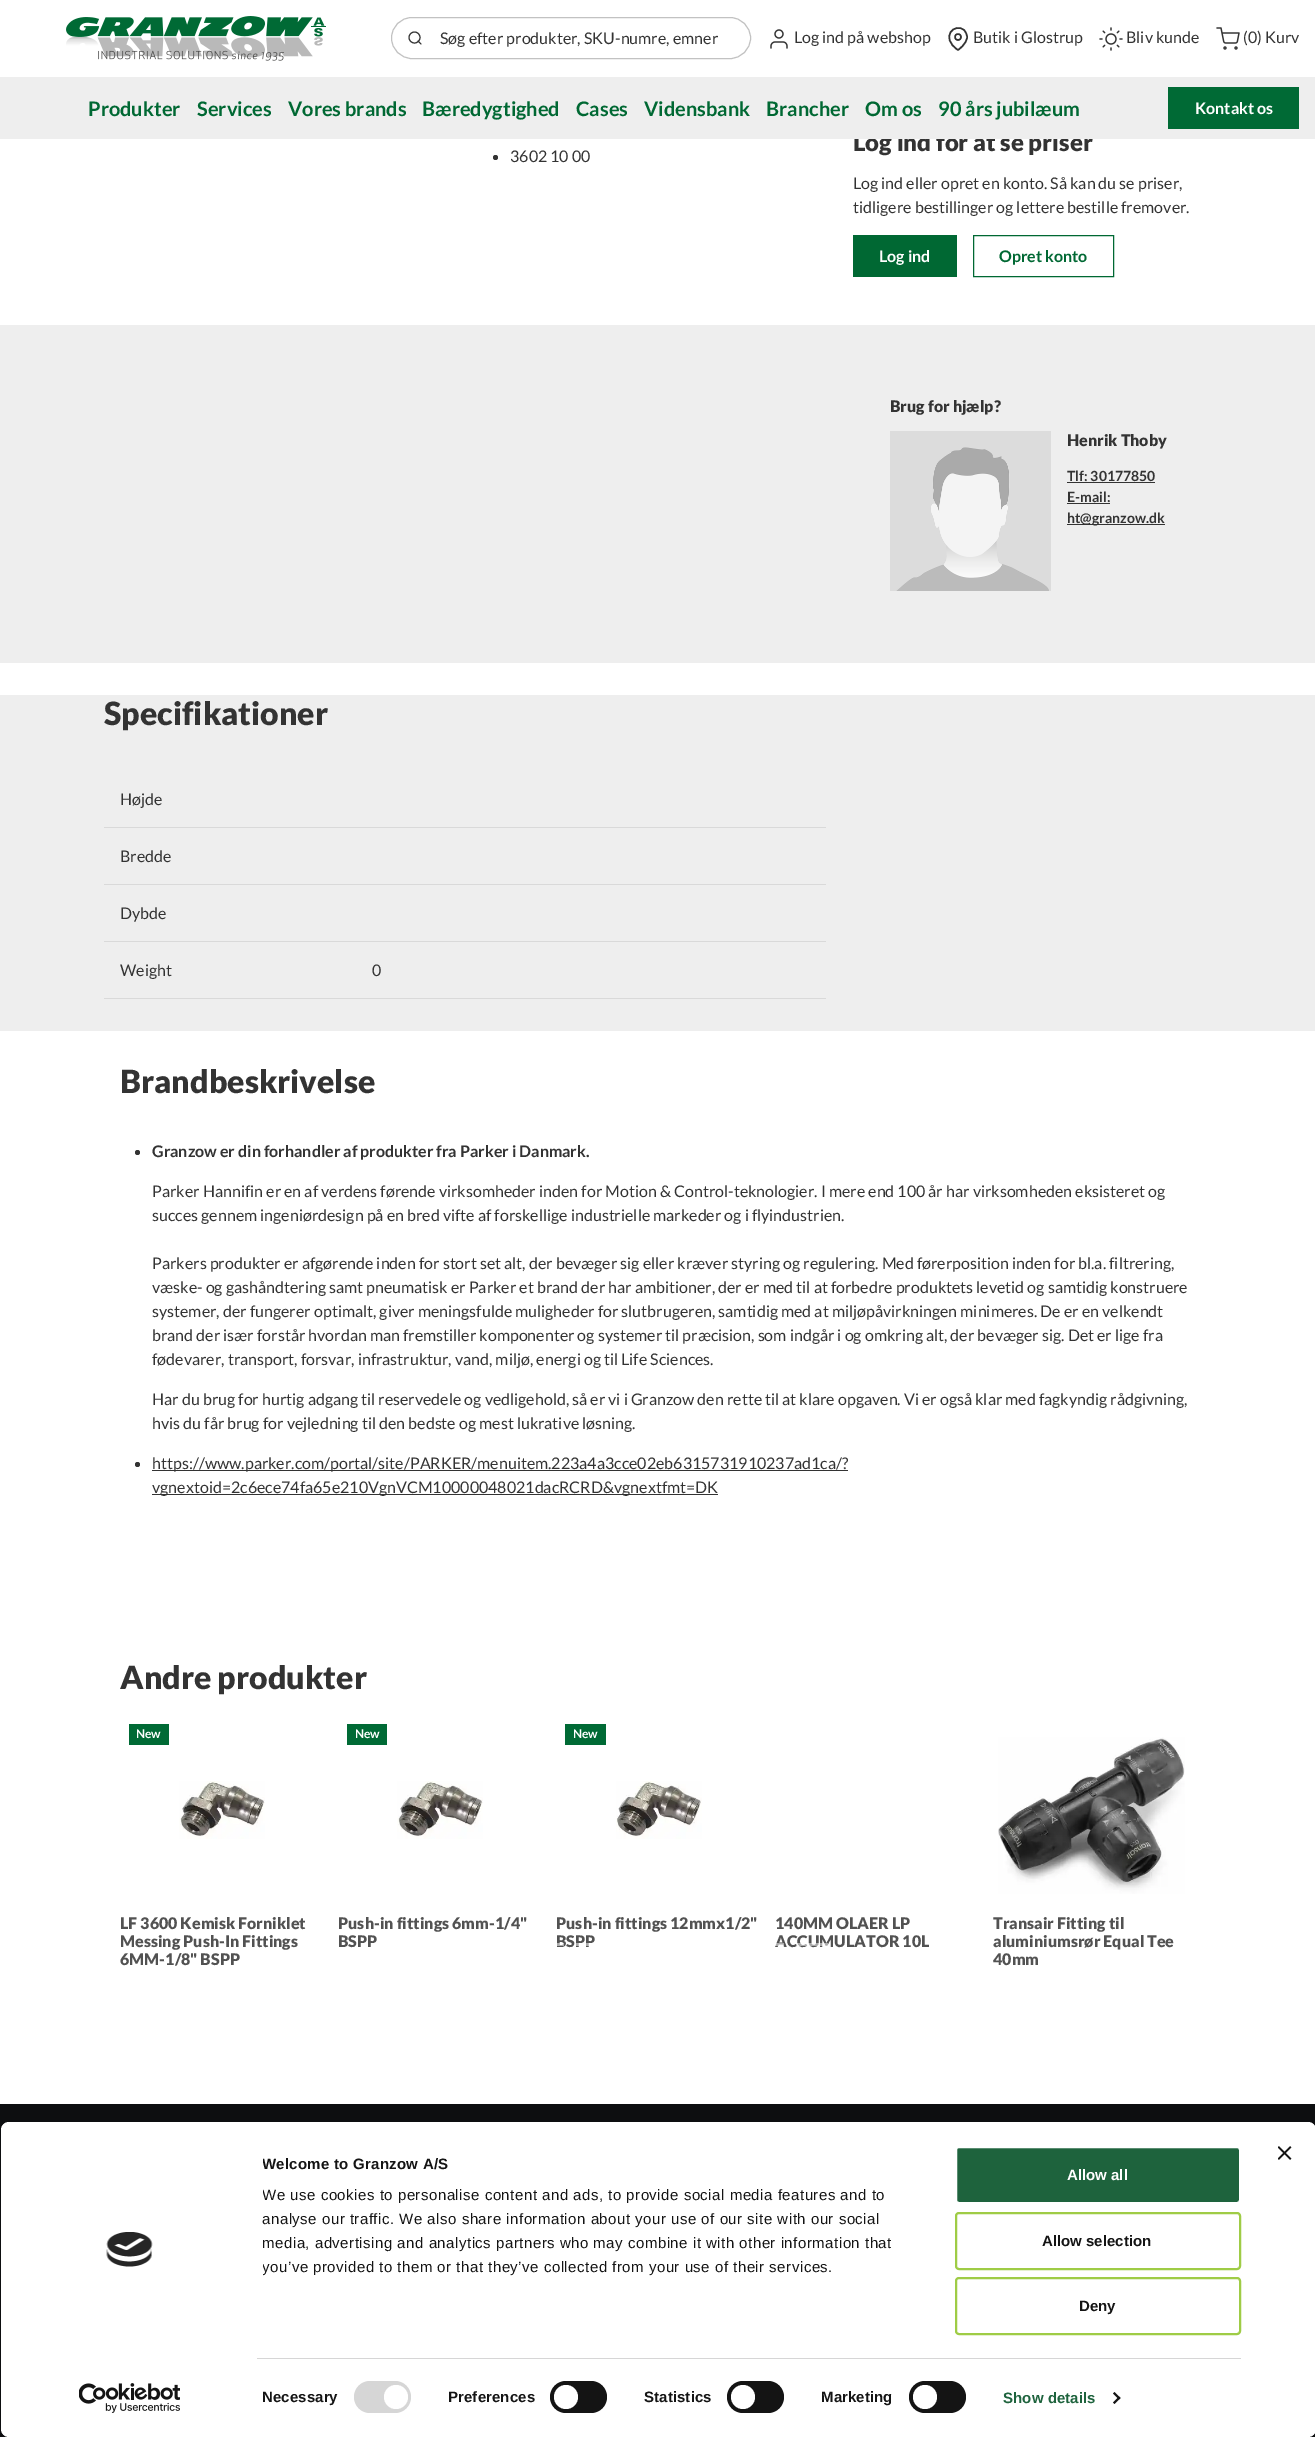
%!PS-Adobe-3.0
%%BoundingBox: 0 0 1315 2437
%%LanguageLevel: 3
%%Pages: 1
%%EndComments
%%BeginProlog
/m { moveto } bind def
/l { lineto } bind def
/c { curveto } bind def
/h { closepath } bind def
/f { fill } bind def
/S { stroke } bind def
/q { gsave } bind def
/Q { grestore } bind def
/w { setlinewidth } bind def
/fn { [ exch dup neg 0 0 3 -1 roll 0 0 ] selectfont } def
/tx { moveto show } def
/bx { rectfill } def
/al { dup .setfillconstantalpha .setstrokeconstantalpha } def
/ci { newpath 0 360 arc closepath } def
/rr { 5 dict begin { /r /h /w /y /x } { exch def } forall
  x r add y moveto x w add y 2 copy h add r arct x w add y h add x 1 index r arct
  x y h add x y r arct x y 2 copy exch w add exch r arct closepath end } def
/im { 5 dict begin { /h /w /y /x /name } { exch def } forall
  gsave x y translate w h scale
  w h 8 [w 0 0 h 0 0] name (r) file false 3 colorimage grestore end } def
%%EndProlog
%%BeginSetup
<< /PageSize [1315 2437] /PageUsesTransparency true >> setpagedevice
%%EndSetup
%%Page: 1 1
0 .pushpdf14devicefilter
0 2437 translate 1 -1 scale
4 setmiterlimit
1 setgray
0 0 1315 2437 bx
(image0.raw) 66 16 260 45 im
0.761 setgray
391.5 17.5 359 41 20.5 rr S
0.2 setgray
414.5 37.5 5.5 ci S
1 setlinecap
1 setlinejoin
421 44 m 418 41 l S
/Lato-Regular 16 fn
(Søg efter produkter, SKU-numre, emner) 440 44 tx
(image1.raw) 770 29 18 20 im
(Log ind på webshop) 794 43 tx
1.5 w
967 37 m 967 44 958 50 958 50 c 939 37.5 955 21.5 964.5 30.5 c 966 32.5 967 34.5 967 37 c h S
0 setlinecap
0 setlinejoin
958 37 3 ci S
(Butik i Glostrup) 973 43 tx
(image2.raw) 1099 27 24 24 im
(Bliv kunde) 1126 43 tx
(image3.raw) 1216 27 24 23 im
(\(0\)) 1243 43 tx
(Kurv) 1265 43 tx
/Lato-Black 24 fn
(Log ind for at se priser) 853 151 tx
0.933 setgray
0 77 1315 62 bx
/Lato-Bold 20 fn
0 0.408 0.2 setrgbcolor
(Produkter) 88 116 tx
(Services) 197 116 tx
(Vores brands) 288 116 tx
(Bæredygtighed) 422 116 tx
(Cases) 576 116 tx
(Vidensbank) 644 116 tx
(Brancher) 766 116 tx
(Om os) 865 116 tx
(90 års jubilæum) 938 116 tx
0 0.416 0.208 setrgbcolor
1168 87 131 42 bx
/Lato-Bold 16 fn
1 setgray
(Kontakt os) 1195 114 tx
0.2 setgray
495.5 157.5 2.5 ci f
/Lato-Regular 16 fn
(3602 10 00) 510 162 tx
(Log ind eller opret en konto. Så kan du se priser,) 853 189 tx
(tidligere bestillinger og lettere bestille fremover.) 853 213 tx
0 0.408 0.2 setrgbcolor
853 235 104 42 bx
/Lato-Bold 16 fn
1 setgray
(Log ind) 879 262 tx
0 0.408 0.2 setrgbcolor
1 w
973.5 235.5 140 41 rectstroke
(Opret konto) 999 262 tx
0.933 setgray
0 325 1315 338 bx
/Lato-Black 16 fn
0.2 setgray
(Brug for hjælp?) 890 412 tx
(image4.raw) 890 431 161 160 im
(Henrik Thoby) 1067 446 tx
/Lato-Bold 14 fn
(Tlf: 30177850) 1067 481 tx
1067 482 88 1 bx
(E-mail:) 1067 502 tx
1067 503 43 1 bx
1067 524 98 1 bx
(ht@granzow.dk) 1067 523 tx
0.933 setgray
0 695 1315 336 bx
/Lato-Black 32 fn
0.2 setgray
(Specifikationer) 104 725 tx
/Lato-Regular 16 fn
(Højde) 120 805 tx
0.851 setgray
104 827 722 1 bx
0.2 setgray
(Bredde) 120 862 tx
0.851 setgray
104 884 722 1 bx
0.2 setgray
(Dybde) 120 919 tx
0.851 setgray
104 941 722 1 bx
0.2 setgray
(Weight) 120 976 tx
0.851 setgray
104 998 722 1 bx
0.2 setgray
(0) 372 976 tx
/Lato-Black 32 fn
(Brandbeskrivelse) 120 1093 tx
137.5 1152.5 2.5 ci f
/Lato-Bold 16 fn
(Granzow er din forhandler af produkter fra Parker i Danmark.) 152 1157 tx
/Lato-Regular 16 fn
(Parker Hannifin er en af verdens førende virksomheder inden for Motion & Control-teknologier. I mere end 100 år har virksomheden eksisteret og) 152 1197 tx
(succes gennem ingeniørdesign på en bred vifte af forskellige industrielle markeder og i flyindustrien.) 152 1221 tx
(Parkers produkter er afgørende inden for stort set alt, der bevæger sig eller kræver styring og regulering. Med førerposition inden for bl.a. filtrering,) 152 1269 tx
(væske- og gashåndtering samt pneumatisk er Parker et brand der har ambitioner, der er med til at forbedre produktets levetid og samtidig konstruere) 152 1293 tx
(systemer, der fungerer optimalt, giver meningsfulde muligheder for slutbrugeren, samtidig med at miljøpåvirkningen minimeres. De er en velkendt) 152 1317 tx
(brand der især forstår hvordan man fremstiller komponenter og systemer til præcision, som indgår i og omkring alt, der bevæger sig. Det er lige fra) 152 1341 tx
(fødevarer, transport, forsvar, infrastruktur, vand, miljø, energi og til Life Sciences.) 152 1365 tx
(Har du brug for hurtig adgang til reservedele og vedligehold, så er vi i Granzow den rette til at klare opgaven. Vi er også klar med fagkyndig rådgivning,) 152 1405 tx
(hvis du får brug for vejledning til den bedste og mest lukrative løsning.) 152 1429 tx
137.5 1464.5 2.5 ci f
152 1470 696 1 bx
(https://www.parker.com/portal/site/PARKER/menuitem.223a4a3cce02eb6315731910237ad1ca/?) 152 1469 tx
152 1494 566 1 bx
(vgnextoid=2c6ece74fa65e210VgnVCM10000048021dacRCRD&vgnextfmt=DK) 152 1493 tx
/Lato-Black 32 fn
(Andre produkter) 120 1689 tx
0 0.416 0.208 setrgbcolor
129 1724 40 21 bx
/Lato-Bold 12 fn
1 setgray
(New) 136 1738 tx
(image5.raw) 179 1781 86 58 im
/Lato-Black 16 fn
0.322 setgray
(LF 3600 Kemisk Forniklet) 120 1929 tx
(Messing Push-In Fittings) 120 1947 tx
(6MM-1/8" BSPP) 120 1965 tx
0 0.416 0.208 setrgbcolor
347 1724 40 21 bx
/Lato-Bold 12 fn
1 setgray
(New) 355 1738 tx
(image5.raw) 397 1781 86 58 im
/Lato-Black 16 fn
0.322 setgray
(Push-in fittings 6mm-1/4") 338 1929 tx
(BSPP) 338 1947 tx
0 0.416 0.208 setrgbcolor
565 1724 41 21 bx
/Lato-Bold 12 fn
1 setgray
(New) 573 1738 tx
(image6.raw) 616 1781 86 58 im
/Lato-Black 16 fn
0.322 setgray
(Push-in fittings 12mmx1/2") 556 1929 tx
(BSPP) 556 1947 tx
(140MM OLAER LP) 775 1929 tx
(ACCUMULATOR 10L) 775 1947 tx
(image7.raw) 998 1737 187 157 im
(Transair Fitting til) 993 1929 tx
(aluminiumsrør Equal Tee) 993 1947 tx
(40mm) 993 1965 tx
0.5 al
1 setgray
557 1943 7 3 bx
576 1943 16 3 bx
775 1943 9 3 bx
796 1943 32 3 bx
1 al
0.051 0.055 0.063 setrgbcolor
0 2104 1315 333 bx
1 setgray
1 2122 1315 315 8 rr f
(image8.raw) 1278 2146 14 14 im
(image9.raw) 106 2232 47 35 im
(image10.raw) 79 2383 101 30 im
q
263 2152 663 177 rectclip
/LiberationSans-Bold 15 fn
0.078 setgray
262 2169 m 0.25 0 (Welcome to Granzow A/S) ashow
/LiberationSans-Regular 15 fn
262 2200 m 0.5 0 (We use cookies to personalise content and ads, to provide social media features and to) ashow
Q
/LiberationSans-Regular 15 fn
0.078 setgray
262 2224 m 0.5 0 (analyse our traffic. We also share information about your use of our site with our social) ashow
262 2248 m 0.5 0 (media, advertising and analytics partners who may combine it with other information that) ashow
q
263 2152 663 177 rectclip
262 2272 m 0.5 0 (you’ve provided to them or that they’ve collected from your use of their services.) ashow
Q
0.839 setgray
257 2358 984 1 bx
/LiberationSans-Bold 15 fn
0.078 setgray
262 2402 m 0.1 0 (Necessary) ashow
0.839 setgray
354 2381 57 32 16 rr f
1 setgray
396 2397 12 ci f
0.078 setgray
448 2402 m 0.1 0 (Preferences) ashow
550 2381 57 32 16 rr f
1 setgray
566 2397 12 ci f
0.078 setgray
644 2402 m 0.1 0 (Statistics) ashow
727 2381 57 32 16 rr f
1 setgray
743 2397 12 ci f
0.078 setgray
821 2402 m 0.1 0 (Marketing) ashow
909 2381 57 32 16 rr f
1 setgray
925 2397 12 ci f
0.118 0.388 0.239 setrgbcolor
1003 2403 m 0.1 0 (Show details) ashow
0.078 setgray
1114.5 2392 m 1120.5 2398 l 1119 2399.5 l 1113 2393.5 l h f
1119 2396.5 m 1120.5 2398 l 1114.5 2404 l 1113 2402.5 l h f
0.118 0.388 0.239 setrgbcolor
956 2147 284 56 3 rr q f Q
1 setgray
2 w
S
(Allow all) 1067 2180 tx
0.624 0.8 0.275 setrgbcolor
956 2213 284 56 3 rr S
0.078 setgray
(Allow selection) 1042 2246 tx
0.624 0.8 0.275 setrgbcolor
956 2278 284 56 3 rr S
0.078 setgray
(Deny) 1079 2311 tx
.poppdf14devicefilter showpage
%%EOF
